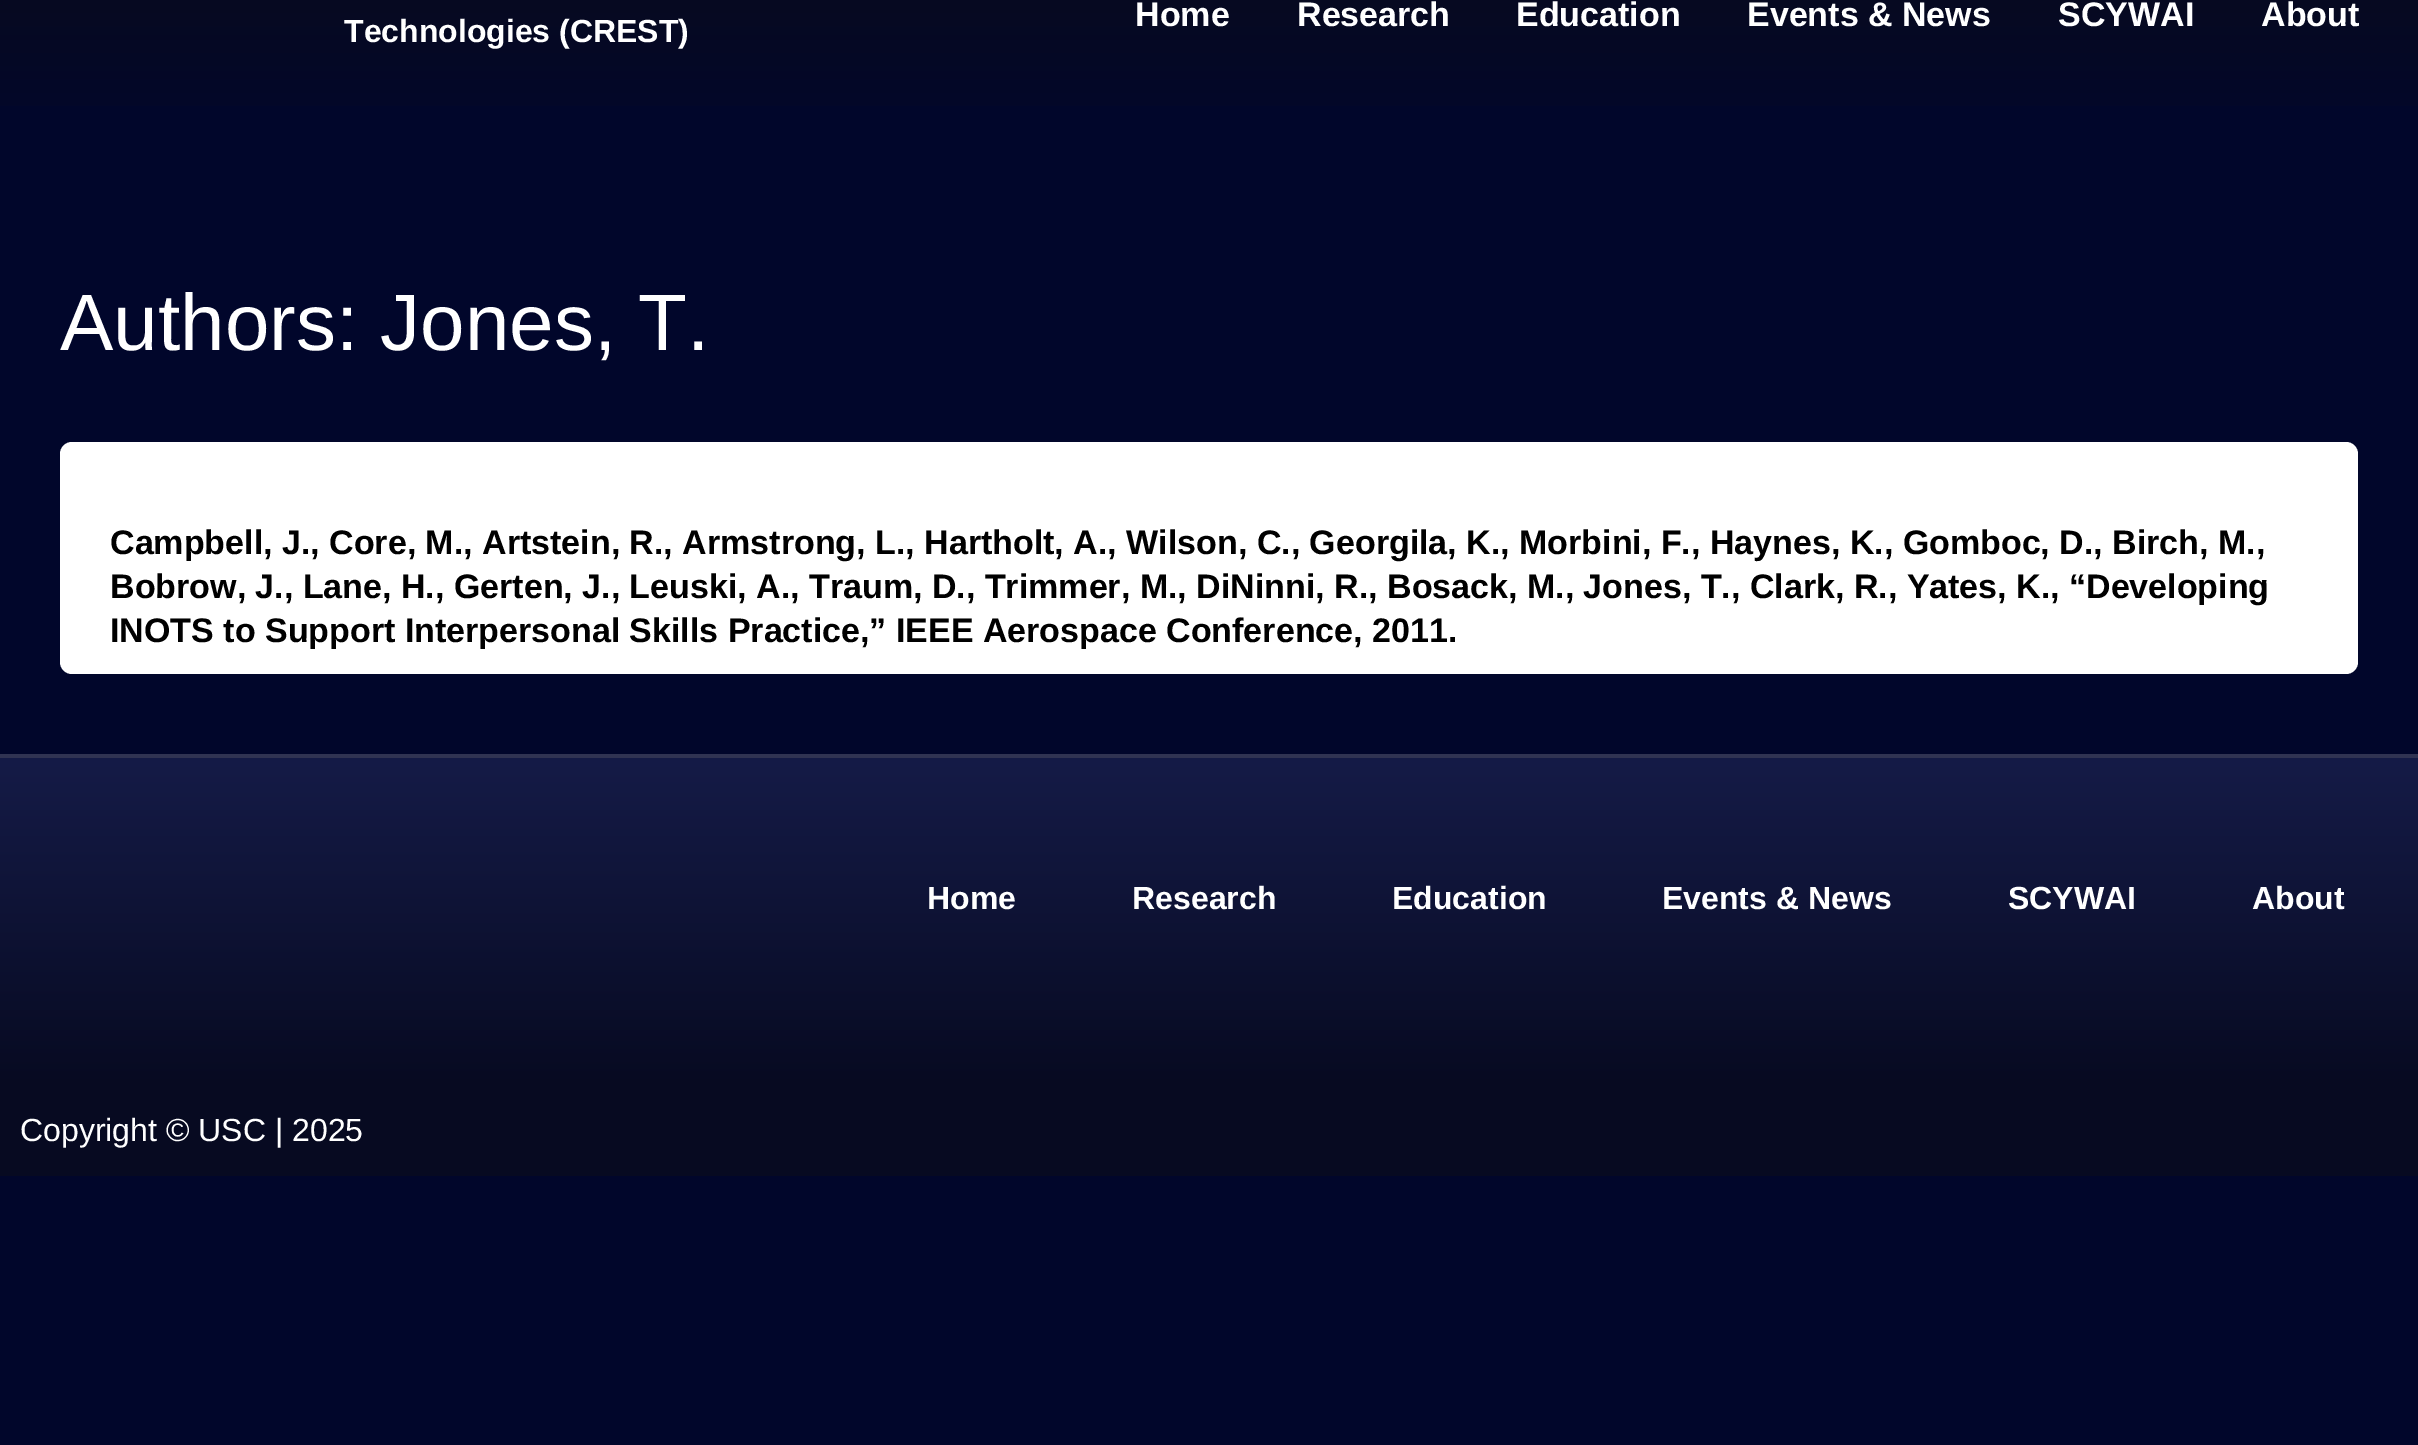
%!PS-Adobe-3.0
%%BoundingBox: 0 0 2418 1445
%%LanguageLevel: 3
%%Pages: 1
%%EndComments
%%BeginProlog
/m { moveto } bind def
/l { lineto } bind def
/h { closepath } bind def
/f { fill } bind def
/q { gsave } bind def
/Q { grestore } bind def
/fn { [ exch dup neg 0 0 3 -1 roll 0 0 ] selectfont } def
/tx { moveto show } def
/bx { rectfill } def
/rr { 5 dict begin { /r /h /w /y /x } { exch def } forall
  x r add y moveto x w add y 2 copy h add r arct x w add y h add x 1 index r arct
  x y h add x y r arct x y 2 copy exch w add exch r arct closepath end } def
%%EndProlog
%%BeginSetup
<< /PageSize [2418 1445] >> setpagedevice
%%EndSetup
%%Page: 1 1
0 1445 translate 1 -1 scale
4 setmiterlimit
0.004 0.024 0.169 setrgbcolor
0 0 2418 1445 bx
q 0 0 m 2418 0 l 2418 106 l 0 106 l h clip newpath
<< /ShadingType 2 /ColorSpace /DeviceRGB /Coords [1209 -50 1209 142] /Extend [true true] /Function << /FunctionType 3 /Domain [0 1] /Functions [<< /FunctionType 2 /Domain [0 1] /C0 [0.027 0.039 0.129] /C1 [0.027 0.039 0.129] /N 1 >> << /FunctionType 2 /Domain [0 1] /C0 [0.027 0.039 0.129] /C1 [0.004 0.024 0.169] /N 1 >>] /Bounds [0.26] /Encode [0 1 0 1] >> >> shfill Q
/LiberationSans-Bold 34 fn
1 setgray
(Home) 1135 26 tx
(Research) 1297 26 tx
(Education) 1516 26 tx
(Events & News) 1747 26 tx
(SCYWAI) 2058 26 tx
(About) 2261 26 tx
/LiberationSans-Bold 32 fn
(Technologies \(CREST\)) 344 42 tx
/LiberationSans-Regular 80 fn
(Authors: Jones, T.) 60 350 tx
60 442 2298 232 12 rr f
/LiberationSans-Bold 34 fn
0 setgray
(Campbell, J., Core, M., Artstein, R., Armstrong, L., Hartholt, A., Wilson, C., Georgila, K., Morbini, F., Haynes, K., Gomboc, D., Birch, M.,) 110 554 tx
(Bobrow, J., Lane, H., Gerten, J., Leuski, A., Traum, D., Trimmer, M., DiNinni, R., Bosack, M., Jones, T., Clark, R., Yates, K., “Developing) 110 598 tx
(INOTS to Support Interpersonal Skills Practice,” IEEE Aerospace Conference, 2011.) 110 642 tx
q 0 758 m 2418 758 l 2418 1088 l 0 1088 l h clip newpath
<< /ShadingType 2 /ColorSpace /DeviceRGB /Coords [1209 758 1209 1088] /Extend [true true] /Function << /FunctionType 2 /Domain [0 1] /C0 [0.082 0.106 0.278] /C1 [0.027 0.039 0.129] /N 1 >> >> shfill Q
0.188 0.2 0.322 setrgbcolor
0 754 2418 4 bx
/LiberationSans-Bold 32 fn
1 setgray
(Home) 927 909 tx
(Research) 1132 909 tx
(Education) 1392 909 tx
(Events & News) 1662 909 tx
(SCYWAI) 2008 909 tx
(About) 2252 909 tx
0.027 0.039 0.129 setrgbcolor
0 1088 2418 88 bx
/LiberationSans-Regular 32 fn
1 setgray
(Copyright © USC | 2025) 20 1141 tx
showpage
%%EOF
